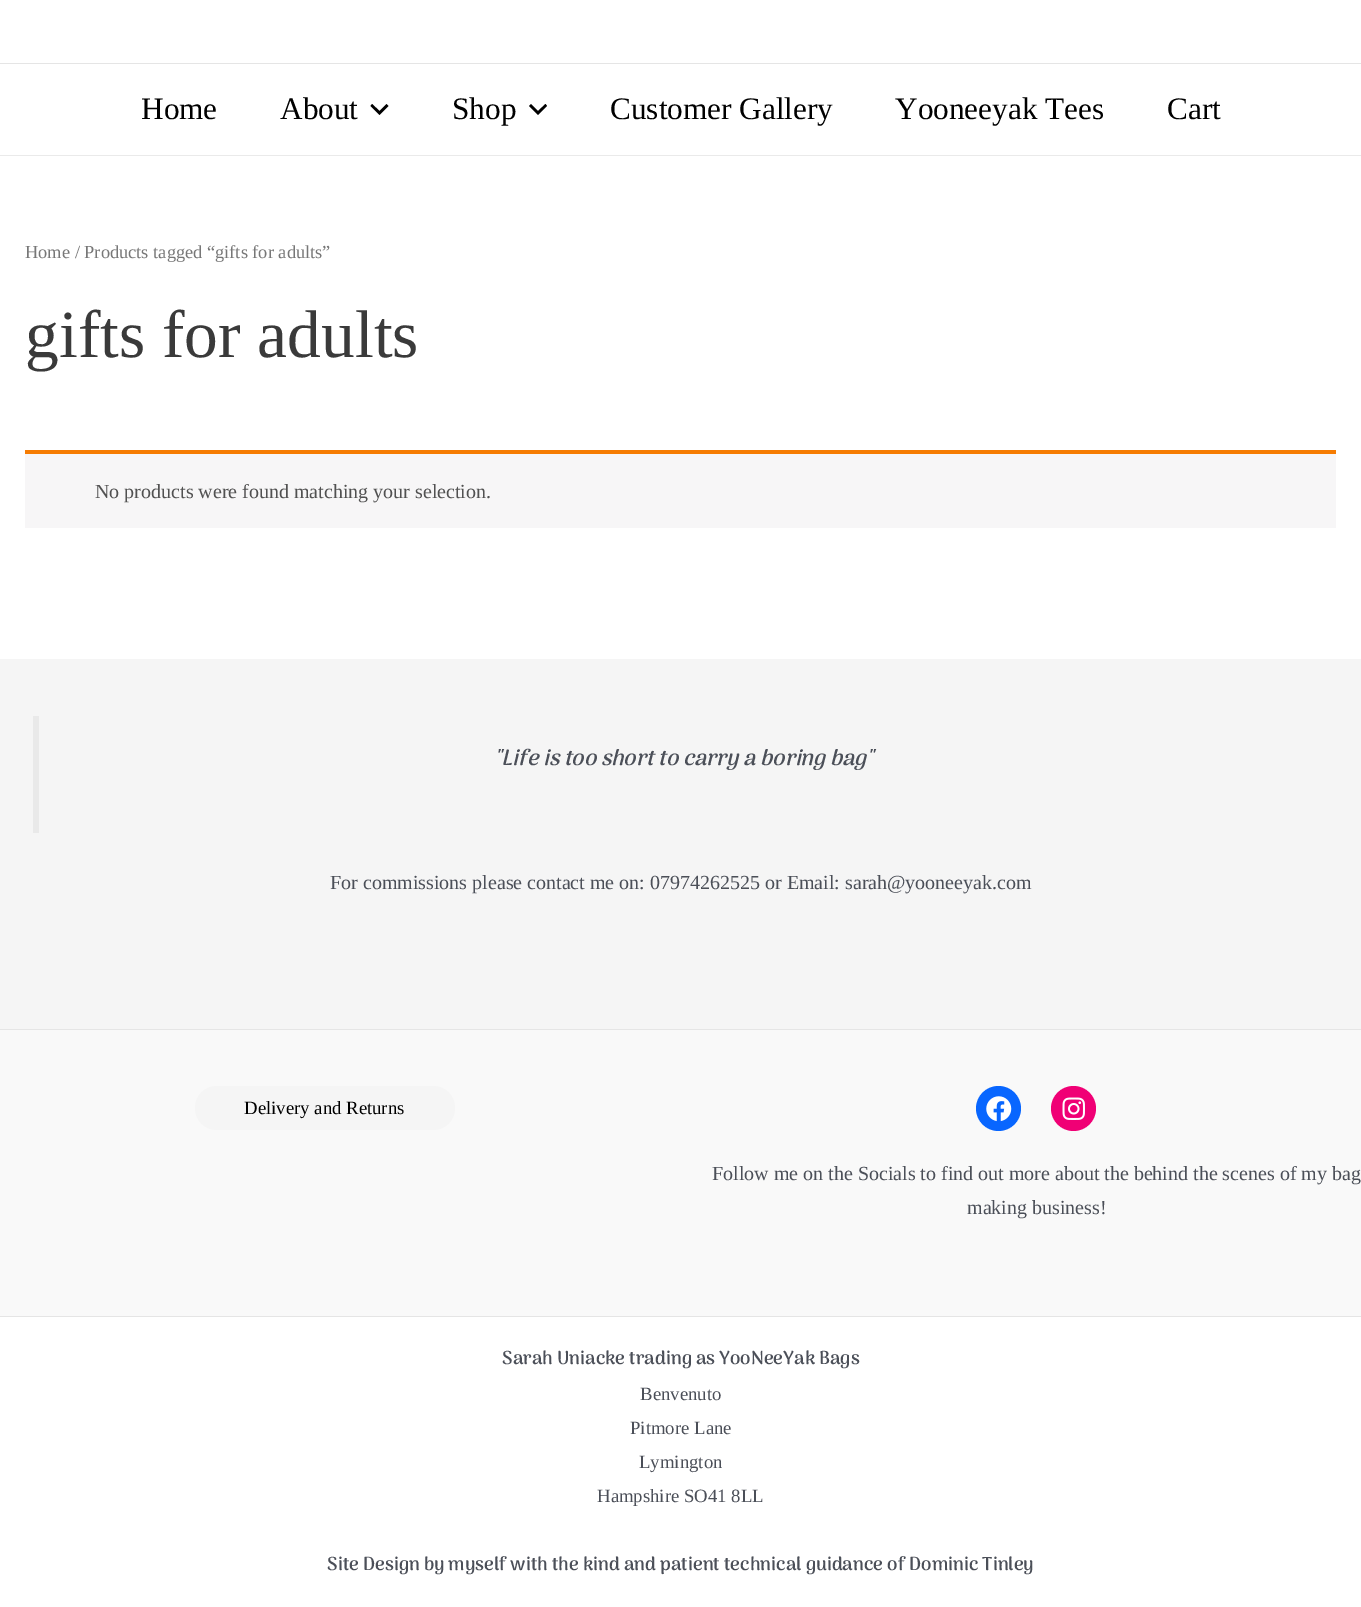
%!PS-Adobe-3.0
%%BoundingBox: 0 0 1361 1607
%%LanguageLevel: 3
%%Pages: 1
%%EndComments
%%BeginProlog
/m { moveto } bind def
/l { lineto } bind def
/h { closepath } bind def
/f { fill } bind def
/fn { [ exch dup neg 0 0 3 -1 roll 0 0 ] selectfont } def
/tx { moveto show } def
/bx { rectfill } def
/ci { newpath 0 360 arc closepath } def
/rr { 5 dict begin { /r /h /w /y /x } { exch def } forall
  x r add y moveto x w add y 2 copy h add r arct x w add y h add x 1 index r arct
  x y h add x y r arct x y 2 copy exch w add exch r arct closepath end } def
/im { 5 dict begin { /h /w /y /x /name } { exch def } forall
  gsave x y translate w h scale
  w h 8 [w 0 0 h 0 0] name (r) file false 3 colorimage grestore end } def
%%EndProlog
%%BeginSetup
<< /PageSize [1361 1607] >> setpagedevice
%%EndSetup
%%Page: 1 1
0 1607 translate 1 -1 scale
4 setmiterlimit
1 setgray
0 0 1361 1607 bx
0.898 setgray
0 63 1361 1 bx
0.918 setgray
0 155 1361 1 bx
/LiberationSerif-Regular 31.25 fn
0 setgray
(Home) 141 119 tx
(About) 280 119 tx
370.5 106 m 379.5 115 l 388.5 106 l 386.5 104 l 379.5 111 l 372 104 l h f
(Shop) 452 119 tx
529 106 m 538 115 l 547 106 l 545.5 104 l 538 111 l 531 104 l h f
(Customer Gallery) 610 119 tx
(Yooneeyak Tees) 895 119 tx
(Cart) 1167 119 tx
/LiberationSerif-Regular 18.4 fn
0.467 setgray
(Home / Products tagged “gifts for adults”) 25 258 tx
/LiberationSerif-Regular 67.5 fn
0.227 setgray
(gifts for adults) 25 357 tx
0.969 0.965 0.969 setrgbcolor
25 454 1311 74 bx
0.965 0.486 0.008 setrgbcolor
25 450 1311 4 bx
/LiberationSerif-Regular 20 fn
0.318 setgray
(No products were found matching your selection.) 95 498 tx
0.961 setgray
0 659 1361 370 bx
0.914 setgray
33 716 6 117 bx
/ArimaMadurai-BoldItalic 22 fn
0.294 0.31 0.345 setrgbcolor
("Life is too short to carry a boring bag") 494 765 tx
/LiberationSerif-Regular 20 fn
(For commissions please contact me on: 07974262525 or Email: sarah@yooneeyak.com) 330 889 tx
0.976 setgray
0 1030 1361 286 bx
0.898 setgray
0 1029 1361 1 bx
0.961 setgray
195 1086 260 44 22 rr f
/LiberationSerif-Regular 18.75 fn
0 setgray
(Delivery and Returns) 244 1114 tx
0.031 0.4 1 setrgbcolor
998.5 1108.5 22.5 ci f
(image0.raw) 986 1096 26 26 im
0.941 0 0.459 setrgbcolor
1073.5 1108.5 22.5 ci f
(image1.raw) 1062 1097 23 23 im
/LiberationSerif-Regular 20 fn
0.294 0.31 0.345 setrgbcolor
(Follow me on the Socials to find out more about the behind the scenes of my bag) 712 1180 tx
(making business!) 967 1214 tx
0.898 setgray
0 1316 1361 1 bx
/ArimaMadurai-Bold 18.75 fn
0.294 0.31 0.345 setrgbcolor
(Sarah Uniacke trading as YooNeeYak Bags) 502 1364 tx
/LiberationSerif-Regular 18.75 fn
(Benvenuto) 640 1400 tx
(Pitmore Lane) 630 1434 tx
(Lymington) 639 1468 tx
(Hampshire SO41 8LL) 597 1502 tx
/ArimaMadurai-Bold 18.75 fn
(Site Design by myself with the kind and patient technical guidance of Dominic Tinley) 327 1570 tx
showpage
%%EOF
